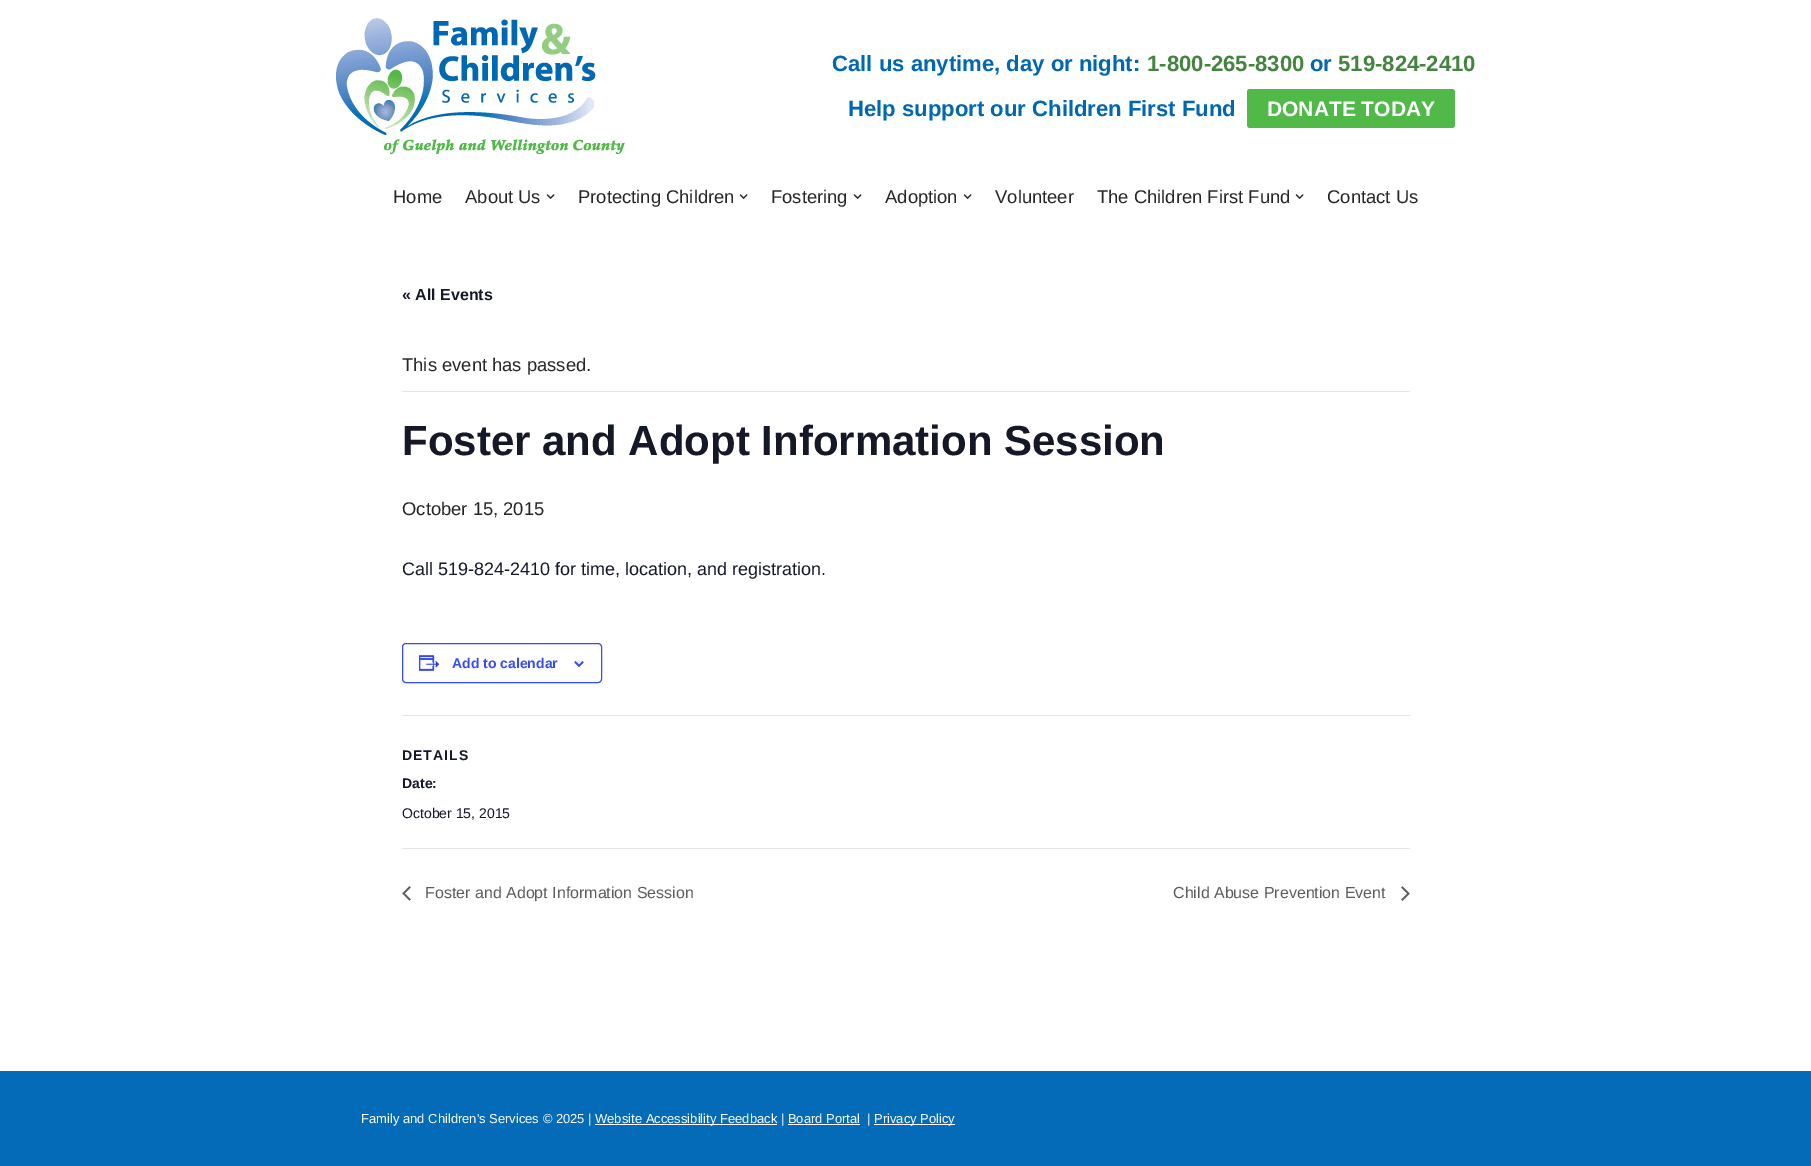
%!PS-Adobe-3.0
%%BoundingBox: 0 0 1811 1166
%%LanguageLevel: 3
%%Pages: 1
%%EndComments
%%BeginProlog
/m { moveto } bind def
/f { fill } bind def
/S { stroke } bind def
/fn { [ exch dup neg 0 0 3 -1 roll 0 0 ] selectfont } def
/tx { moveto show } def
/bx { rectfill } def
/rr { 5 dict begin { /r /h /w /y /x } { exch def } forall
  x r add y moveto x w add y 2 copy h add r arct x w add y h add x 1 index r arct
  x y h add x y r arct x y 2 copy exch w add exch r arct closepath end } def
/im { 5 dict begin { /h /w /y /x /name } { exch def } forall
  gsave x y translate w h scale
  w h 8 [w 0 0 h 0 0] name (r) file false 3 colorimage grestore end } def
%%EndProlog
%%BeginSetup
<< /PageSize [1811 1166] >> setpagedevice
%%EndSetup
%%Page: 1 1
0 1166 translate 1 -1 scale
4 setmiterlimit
1 setgray
0 0 1811 1166 bx
(image0.raw) 336 18 289 137 im
/LiberationSans-Bold 22.1 fn
0 0.408 0.702 setrgbcolor
(Call us anytime, day or night:) 832 71 tx
0.263 0.518 0.243 setrgbcolor
(1-800-265-8300) 1147 71 tx
0 0.408 0.702 setrgbcolor
(or) 1310 71 tx
0.263 0.518 0.243 setrgbcolor
(519-824-2410) 1338 71 tx
0 0.408 0.702 setrgbcolor
(Help support our Children First Fund) 848 116 tx
0.314 0.725 0.282 setrgbcolor
1247 89 208 39 3 rr f
/LiberationSans-Bold 21 fn
1 setgray
(DONATE TODAY) 1267 116 tx
/LiberationSans-Regular 18.4 fn
0.153 0.149 0.149 setrgbcolor
(Home) 393 203 tx
(About Us) 465 203 tx
(image1.raw) 546 194 9 5 im
(Protecting Children) 578 203 tx
(image1.raw) 739 194 9 5 im
(Fostering) 771 203 tx
(image1.raw) 853 194 9 5 im
(Adoption) 885 203 tx
(image1.raw) 963 194 9 5 im
(Volunteer) 995 203 tx
(The Children First Fund) 1097 203 tx
(image1.raw) 1295 194 9 5 im
(Contact Us) 1327 203 tx
/LiberationSans-Bold 16 fn
0.078 0.094 0.153 setrgbcolor
(« All Events) 402 300 tx
0.894 setgray
402 391 1008 1 bx
/LiberationSans-Regular 18.4 fn
0.153 0.149 0.149 setrgbcolor
(This event has passed.) 402 371 tx
/LiberationSans-Bold 42 fn
0.078 0.094 0.153 setrgbcolor
(Foster and Adopt Information Session) 402 455 tx
/LiberationSans-Regular 18.4 fn
0.153 0.149 0.149 setrgbcolor
(October 15, 2015) 402 515 tx
/LiberationSans-Regular 18 fn
0.078 0.094 0.153 setrgbcolor
(Call 519-824-2410 for time, location, and registration.) 402 575 tx
0.2 0.29 1 setrgbcolor
402.5 643.5 199 39 3.5 rr S
(image2.raw) 419 655 21 16 im
/LiberationSans-Bold 14 fn
(Add to calendar) 452 668 tx
(image3.raw) 574 661 10 6 im
0.894 setgray
402 715 1008 1 bx
0.078 0.094 0.153 setrgbcolor
402 760 m 1 0 (DETAILS) ashow
(Date:) 402 788 tx
/LiberationSans-Regular 14 fn
(October 15, 2015) 402 818 tx
0.894 setgray
402 848 1008 1 bx
(image4.raw) 402 886 9 15 im
/LiberationSans-Regular 16 fn
0.365 setgray
(Foster and Adopt Information Session) 425 898 tx
(Child Abuse Prevention Event) 1173 898 tx
(image5.raw) 1401 886 9 15 im
0.016 0.42 0.725 setrgbcolor
0 1071 1811 95 bx
/LiberationSans-Regular 13 fn
1 setgray
(Family and Children's Services © 2025 |) 361 1123 tx
595 1124 182 1 bx
(Website Accessibility Feedback | Board Portal) 595 1123 tx
(|) 867 1123 tx
874 1124 81 1 bx
(Privacy Policy) 874 1123 tx
788 1124 72 1 bx
showpage
%%EOF
